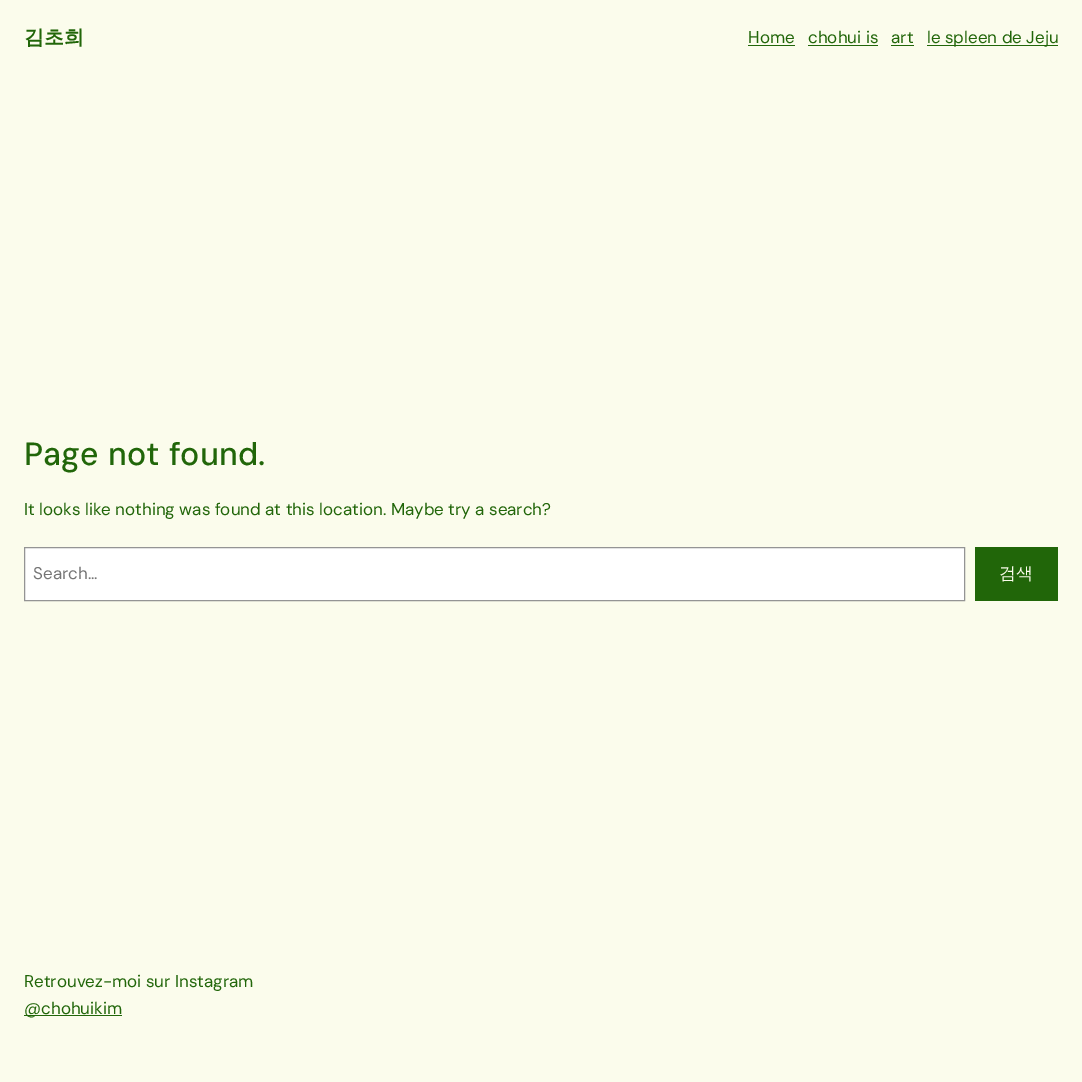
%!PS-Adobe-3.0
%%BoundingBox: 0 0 1082 1082
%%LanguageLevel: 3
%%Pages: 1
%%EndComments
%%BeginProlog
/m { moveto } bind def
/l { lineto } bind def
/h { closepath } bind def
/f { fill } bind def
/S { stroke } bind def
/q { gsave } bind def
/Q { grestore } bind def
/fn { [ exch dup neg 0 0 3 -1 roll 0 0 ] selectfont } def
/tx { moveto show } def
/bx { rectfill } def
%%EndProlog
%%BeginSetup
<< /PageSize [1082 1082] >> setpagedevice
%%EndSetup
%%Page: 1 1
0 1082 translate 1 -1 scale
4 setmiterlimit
0.984 0.988 0.925 setrgbcolor
0 0 1082 1082 bx
/WenQuanYiZenHei-Bold 20 fn
0.129 0.4 0.035 setrgbcolor
(김초희) 24 44 tx
/DMSans-Regular 17 fn
(Home) 748 43 tx
748 45 47 1 bx
(chohui is) 808 43 tx
808 45 70 1 bx
(art) 891 43 tx
891 45 23 1 bx
927 45 131 1 bx
(le spleen de Jeju) 927 43 tx
/DMSans-Medium 32 fn
24 465 m 1 0 32 (Page not found.) widthshow
/DMSans-Regular 17 fn
(It looks like nothing was found at this location. Maybe try a search?) 24 515 tx
1 setgray
24.5 547.5 m 964.5 547.5 l 964.5 600.5 l 24.5 600.5 l h q f Q
0.58 setgray
S
0.459 setgray
(Search...) 33 579 tx
0.129 0.4 0.035 setrgbcolor
975 547 83 54 bx
/WenQuanYiZenHei-Medium 17 fn
0.984 0.988 0.925 setrgbcolor
(검색) 999 579 tx
/DMSans-Regular 17 fn
0.129 0.4 0.035 setrgbcolor
(Retrouvez-moi sur Instagram) 24 987 tx
24 1015 98 1 bx
(@chohuikim) 24 1014 tx
showpage
%%EOF
